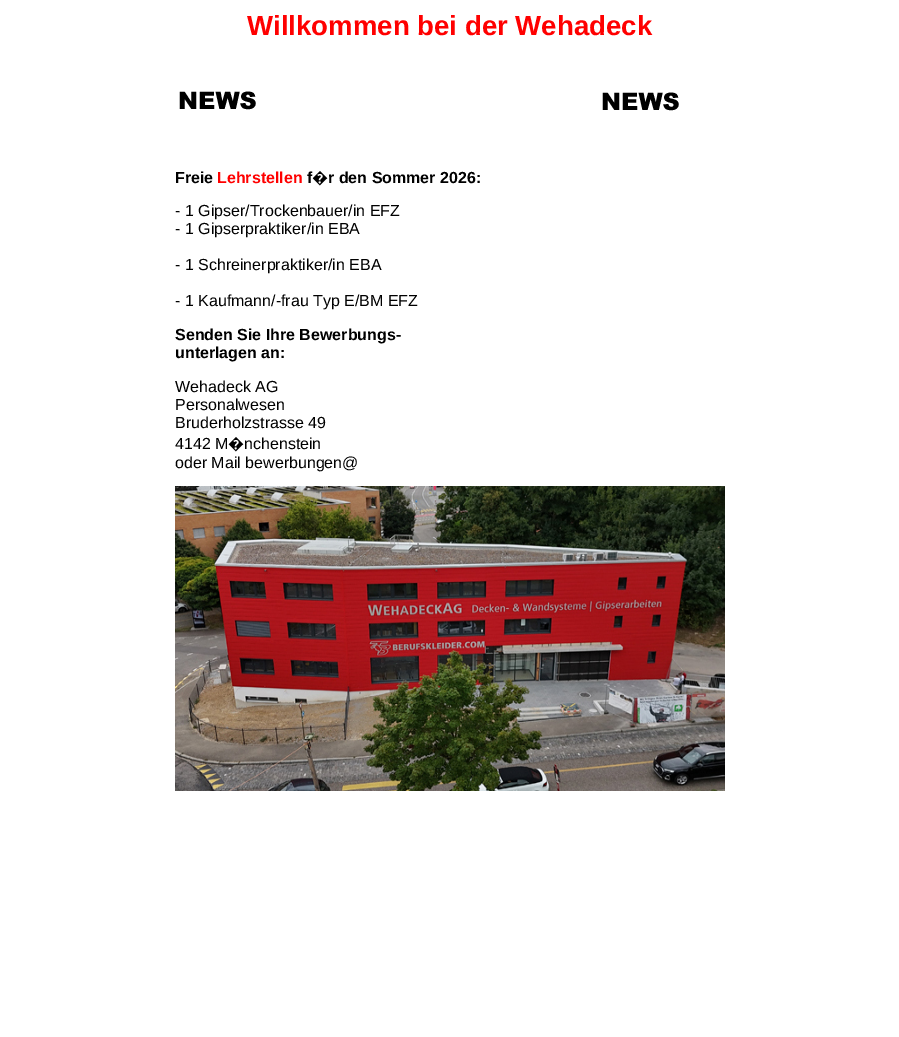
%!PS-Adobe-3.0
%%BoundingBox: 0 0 899 1037
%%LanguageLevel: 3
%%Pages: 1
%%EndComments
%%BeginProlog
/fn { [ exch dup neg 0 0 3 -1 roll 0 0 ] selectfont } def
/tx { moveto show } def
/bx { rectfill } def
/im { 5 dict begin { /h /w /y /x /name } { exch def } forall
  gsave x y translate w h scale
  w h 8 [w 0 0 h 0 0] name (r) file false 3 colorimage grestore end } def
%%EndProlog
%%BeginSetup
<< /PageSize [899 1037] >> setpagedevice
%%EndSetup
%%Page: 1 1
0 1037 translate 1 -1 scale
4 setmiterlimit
1 setgray
0 0 899 1037 bx
/LiberationSans-Bold 27.6 fn
1 0 0 setrgbcolor
(Willkommen bei der Wehadeck) 247 35 tx
(image0.raw) 179 91 500 20 im
/LiberationSans-Bold 16 fn
0 setgray
(Freie) 175 183 tx
1 0 0 setrgbcolor
(Lehrstellen) 217 183 tx
0 setgray
(f) 307 183 tx
/NotoSans-Bold 16 fn
(�) 312 183 tx
/LiberationSans-Bold 16 fn
(r den Sommer 2026:) 328 183 tx
/LiberationSans-Regular 16 fn
(- 1 Gipser/Trockenbauer/in EFZ) 175 216 tx
(- 1 Gipserpraktiker/in EBA) 175 234 tx
(- 1 Schreinerpraktiker/in EBA) 175 270 tx
(- 1 Kaufmann/-frau Typ E/BM EFZ) 175 306 tx
/LiberationSans-Bold 16 fn
(Senden Sie Ihre Bewerbungs-) 175 340 tx
(unterlagen an:) 175 358 tx
/LiberationSans-Regular 16 fn
(Wehadeck AG) 175 392 tx
(Personalwesen) 175 410 tx
(Bruderholzstrasse 49) 175 428 tx
(4142 M) 175 449 tx
/NotoSans-Regular 16 fn
(�) 228 449 tx
/LiberationSans-Regular 16 fn
(nchenstein) 244 449 tx
(oder Mail bewerbungen@) 175 468 tx
(image1.raw) 175 486 550 305 im
showpage
%%EOF
